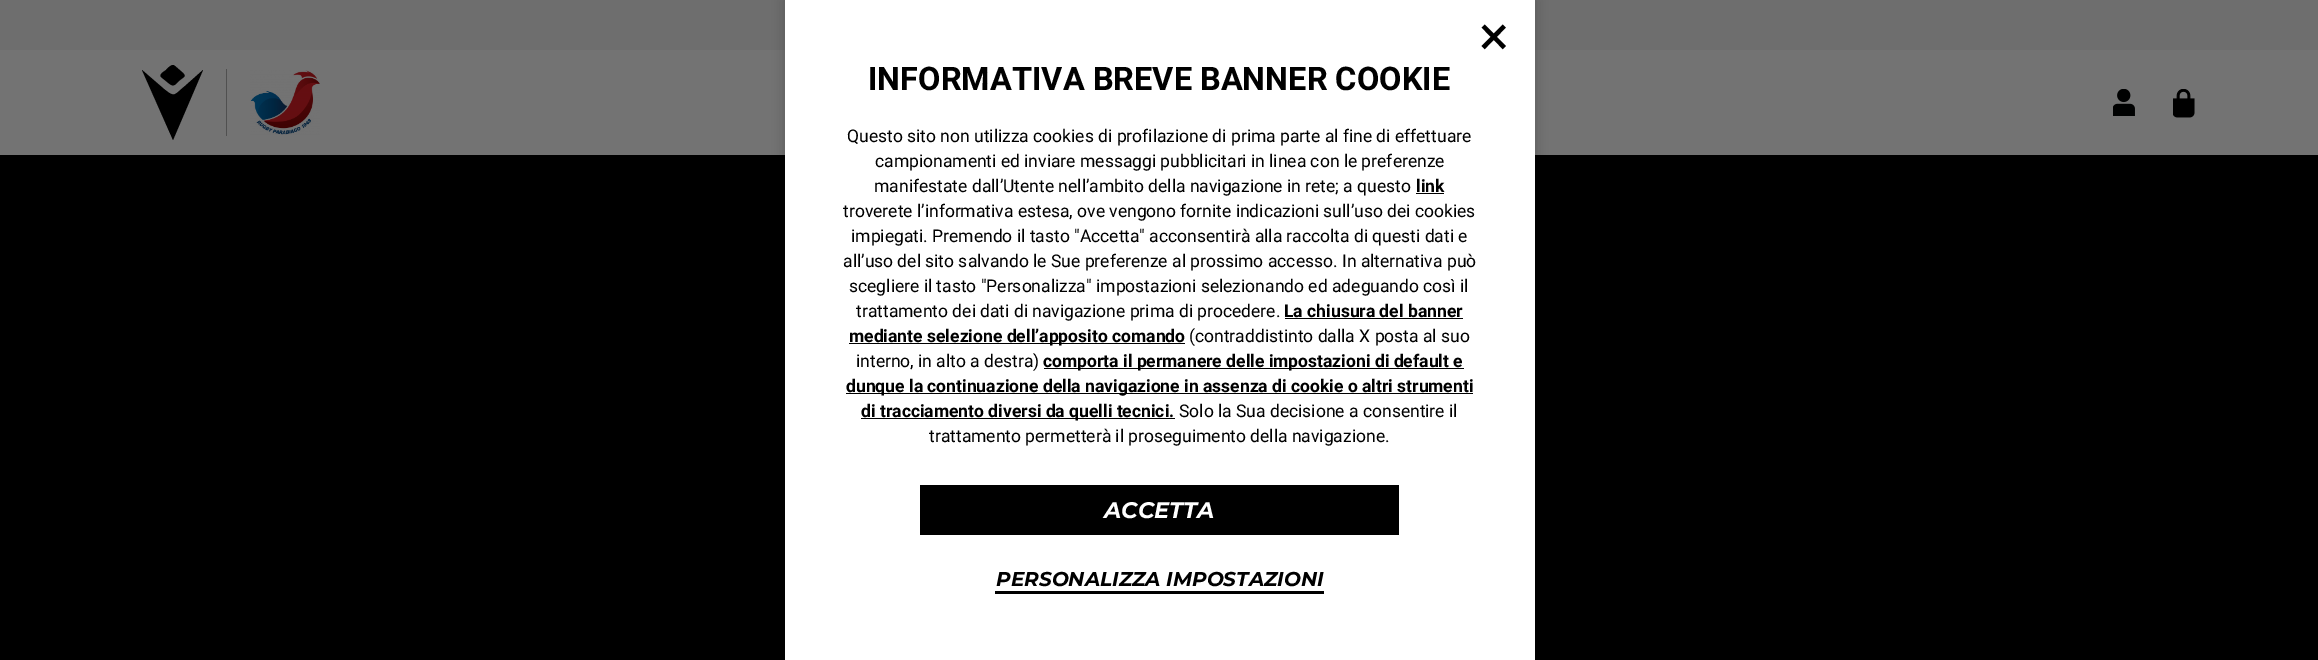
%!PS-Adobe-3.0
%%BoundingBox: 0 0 2318 660
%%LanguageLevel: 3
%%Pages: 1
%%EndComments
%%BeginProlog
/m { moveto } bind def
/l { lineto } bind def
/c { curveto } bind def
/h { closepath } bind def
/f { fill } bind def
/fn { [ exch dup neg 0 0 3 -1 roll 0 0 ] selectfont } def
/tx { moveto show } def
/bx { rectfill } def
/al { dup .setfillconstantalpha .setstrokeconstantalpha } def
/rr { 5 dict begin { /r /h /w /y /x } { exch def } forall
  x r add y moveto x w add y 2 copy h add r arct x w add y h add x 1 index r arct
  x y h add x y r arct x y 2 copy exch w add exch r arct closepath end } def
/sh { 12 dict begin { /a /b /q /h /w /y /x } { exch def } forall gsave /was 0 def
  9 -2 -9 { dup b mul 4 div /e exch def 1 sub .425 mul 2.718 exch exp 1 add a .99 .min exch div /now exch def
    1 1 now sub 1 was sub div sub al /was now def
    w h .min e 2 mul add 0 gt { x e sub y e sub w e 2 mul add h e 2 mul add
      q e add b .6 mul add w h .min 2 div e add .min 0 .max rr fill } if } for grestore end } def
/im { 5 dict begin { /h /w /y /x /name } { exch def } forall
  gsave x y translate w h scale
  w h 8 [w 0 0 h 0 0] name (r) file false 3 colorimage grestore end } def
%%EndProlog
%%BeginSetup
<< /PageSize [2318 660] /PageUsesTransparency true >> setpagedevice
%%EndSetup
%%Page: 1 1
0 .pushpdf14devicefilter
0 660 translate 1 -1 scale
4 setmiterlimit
0 setgray
0 0 2318 660 bx
0.451 setgray
0 50 2318 105 bx
0.431 setgray
0 0 2318 50 bx
0 setgray
203 70 m 173 140 l 142 70 l 164 89 l 175 98 174 95 185 86 c h f
175 66 m 172 63 168 68 166 70 c 162.5 72.5 l 161.5 73.5 159.5 75 161 77 c 169 83.5 l 174 87.5 175 84.5 179.5 80.5 c 183.5 77 187 76.5 182.5 72.5 c h f
0.314 setgray
226 69 1 67 bx
(image0.raw) 250 70 70 65 im
(image1.raw) 2113 89 22 27 im
(image2.raw) 2173 89 22 29 im
0 setgray
784 0 752 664 0 6 0.2 sh
1 setgray
785 0 750 660 bx
/Roboto-Regular 56 fn
0 setgray
(×) 1479 55 tx
/Roboto-Bold 32.5 fn
(INFORMATIVA BREVE BANNER COOKIE) 868 90 tx
/Roboto-Regular 17.5 fn
(Questo sito non utilizza cookies di profilazione di prima parte al fine di effettuare) 847 142 tx
(campionamenti ed inviare messaggi pubblicitari in linea con le preferenze) 875 167 tx
(manifestate dall’Utente nell’ambito della navigazione in rete; a questo) 874 192 tx
/Roboto-Bold 17.5 fn
(link) 1416 192 tx
1416 193 28 1 bx
/Roboto-Regular 17.5 fn
(troverete l’informativa estesa, ove vengono fornite indicazioni sull’uso dei cookies) 843 217 tx
(impiegati. Premendo il tasto "Accetta" acconsentirà alla raccolta di questi dati e) 851 242 tx
(all’uso del sito salvando le Sue preferenze al prossimo accesso. In alternativa può) 843 267 tx
(scegliere il tasto "Personalizza" impostazioni selezionando ed adeguando così il) 849 292 tx
(trattamento dei dati di navigazione prima di procedere.) 856 317 tx
/Roboto-Bold 17.5 fn
(La chiusura del banner) 1284 317 tx
1285 318 178 1 bx
849 343 336 1 bx
(mediante selezione dell’apposito comando) 849 342 tx
/Roboto-Regular 17.5 fn
(\(contraddistinto dalla X posta al suo) 1189 342 tx
(interno, in alto a destra\)) 856 367 tx
1044 368 420 1 bx
/Roboto-Bold 17.5 fn
(comporta il permanere delle impostazioni di default e) 1043 367 tx
846 393 627 1 bx
(dunque la continuazione della navigazione in assenza di cookie o altri strumenti) 846 392 tx
861 418 314 1 bx
(di tracciamento diversi da quelli tecnici.) 861 417 tx
/Roboto-Regular 17.5 fn
(Solo la Sua decisione a consentire il) 1179 417 tx
(trattamento permetterà il proseguimento della navigazione.) 929 442 tx
920 485 479 50 bx
/Montserrat-BoldItalic 22.5 fn
1 setgray
(ACCETTA) 1104 518 tx
/Montserrat-BoldItalic 20 fn
0 setgray
(PERSONALIZZA IMPOSTAZIONI) 996 586 tx
995 591 329 3 bx
.poppdf14devicefilter showpage
%%EOF
